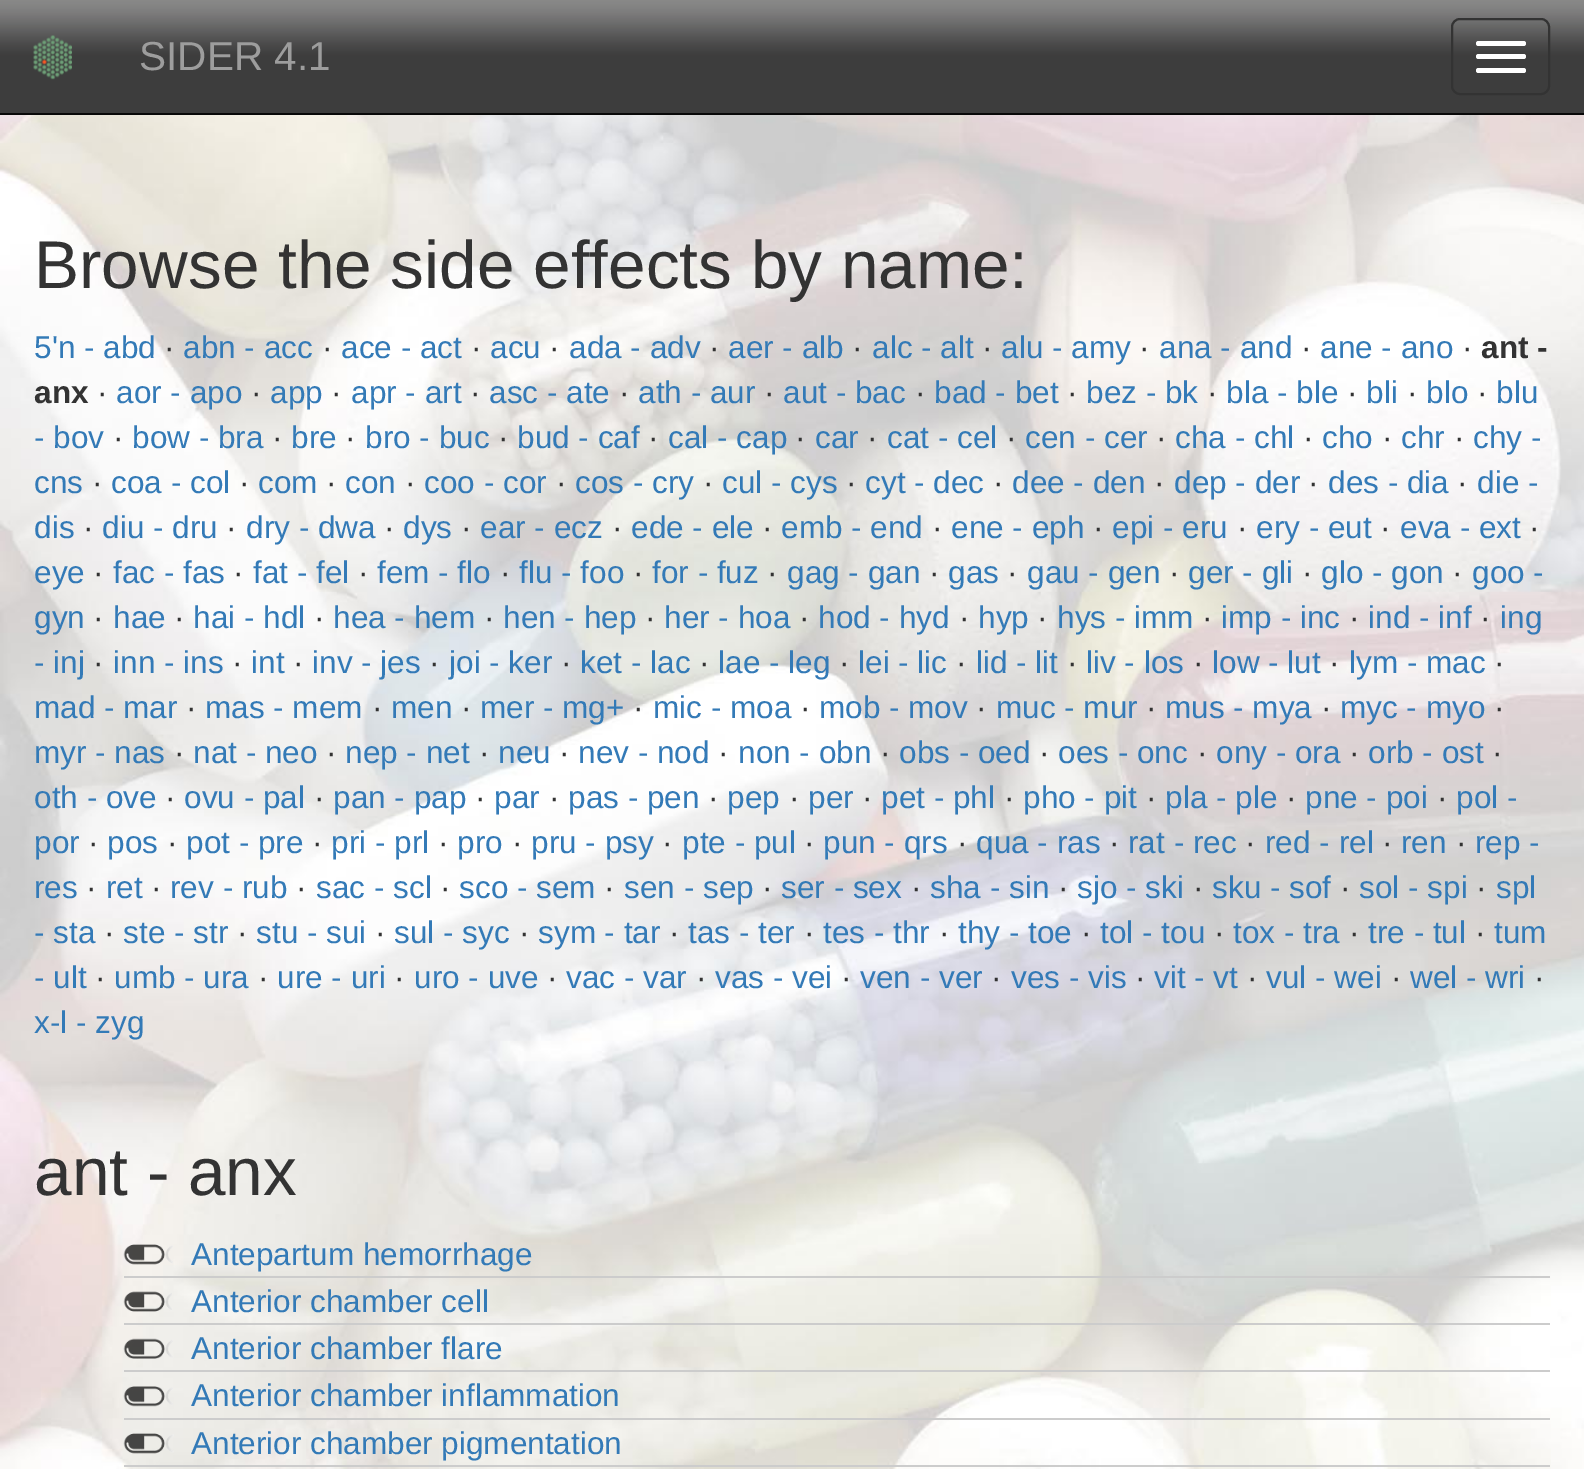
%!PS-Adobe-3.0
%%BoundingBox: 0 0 1584 1469
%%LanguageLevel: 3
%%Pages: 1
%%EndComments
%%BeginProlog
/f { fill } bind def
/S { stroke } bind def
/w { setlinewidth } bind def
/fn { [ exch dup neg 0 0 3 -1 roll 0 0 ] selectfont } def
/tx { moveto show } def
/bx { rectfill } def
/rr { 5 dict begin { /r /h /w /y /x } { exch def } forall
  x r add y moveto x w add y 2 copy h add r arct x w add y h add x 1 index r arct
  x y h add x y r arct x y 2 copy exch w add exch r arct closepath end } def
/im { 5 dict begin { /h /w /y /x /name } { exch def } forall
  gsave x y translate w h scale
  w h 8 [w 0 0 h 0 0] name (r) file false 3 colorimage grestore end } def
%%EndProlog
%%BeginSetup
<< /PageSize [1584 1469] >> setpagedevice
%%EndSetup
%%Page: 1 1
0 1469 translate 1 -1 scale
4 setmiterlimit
1 setgray
0 0 1584 1469 bx
(image0.raw) 0 115 1584 1354 im
(image1.raw) 0 0 1584 113 im
0.031 setgray
0 113 1584 2 bx
(image2.raw) 33 35 39 45 im
/LiberationSans-Regular 40.5 fn
0.616 setgray
(SIDER 4.1) 139 70 tx
0.2 setgray
2 w
1452 19 97 75 8 rr S
1 setgray
1476 41 50 5 2.5 rr f
1476 54 50 5 2.5 rr f
1476 68 50 5 2.5 rr f
/LiberationSans-Regular 67.5 fn
0.2 setgray
(Browse the side effects by name:) 34 288 tx
/LiberationSans-Regular 31.5 fn
0.2 0.478 0.718 setrgbcolor
(5'n - abd) 34 358 tx
0.2 setgray
(·) 164 358 tx
0.2 0.478 0.718 setrgbcolor
(abn - acc) 183 358 tx
0.2 setgray
(·) 322 358 tx
0.2 0.478 0.718 setrgbcolor
(ace - act) 341 358 tx
0.2 setgray
(·) 471 358 tx
0.2 0.478 0.718 setrgbcolor
(acu) 490 358 tx
0.2 setgray
(·) 549 358 tx
0.2 0.478 0.718 setrgbcolor
(ada - adv) 569 358 tx
0.2 setgray
(·) 709 358 tx
0.2 0.478 0.718 setrgbcolor
(aer - alb) 728 358 tx
0.2 setgray
(·) 852 358 tx
0.2 0.478 0.718 setrgbcolor
(alc - alt) 872 358 tx
0.2 setgray
(·) 982 358 tx
0.2 0.478 0.718 setrgbcolor
(alu - amy) 1001 358 tx
0.2 setgray
(·) 1139 358 tx
0.2 0.478 0.718 setrgbcolor
(ana - and) 1159 358 tx
0.2 setgray
(·) 1301 358 tx
0.2 0.478 0.718 setrgbcolor
(ane - ano) 1320 358 tx
0.2 setgray
(·) 1462 358 tx
/LiberationSans-Bold 31.5 fn
(ant -) 1481 358 tx
(anx) 34 403 tx
/LiberationSans-Regular 31.5 fn
(·) 97 403 tx
0.2 0.478 0.718 setrgbcolor
(aor - apo) 116 403 tx
0.2 setgray
(·) 251 403 tx
0.2 0.478 0.718 setrgbcolor
(app) 270 403 tx
0.2 setgray
(·) 331 403 tx
0.2 0.478 0.718 setrgbcolor
(apr - art) 351 403 tx
0.2 setgray
(·) 470 403 tx
0.2 0.478 0.718 setrgbcolor
(asc - ate) 489 403 tx
0.2 setgray
(·) 619 403 tx
0.2 0.478 0.718 setrgbcolor
(ath - aur) 638 403 tx
0.2 setgray
(·) 764 403 tx
0.2 0.478 0.718 setrgbcolor
(aut - bac) 783 403 tx
0.2 setgray
(·) 915 403 tx
0.2 0.478 0.718 setrgbcolor
(bad - bet) 934 403 tx
0.2 setgray
(·) 1067 403 tx
0.2 0.478 0.718 setrgbcolor
(bez - bk) 1086 403 tx
0.2 setgray
(·) 1207 403 tx
0.2 0.478 0.718 setrgbcolor
(bla - ble) 1226 403 tx
0.2 setgray
(·) 1347 403 tx
0.2 0.478 0.718 setrgbcolor
(bli) 1366 403 tx
0.2 setgray
(·) 1407 403 tx
0.2 0.478 0.718 setrgbcolor
(blo) 1426 403 tx
0.2 setgray
(·) 1477 403 tx
0.2 0.478 0.718 setrgbcolor
(blu) 1496 403 tx
(- bov) 34 448 tx
0.2 setgray
(·) 113 448 tx
0.2 0.478 0.718 setrgbcolor
(bow - bra) 132 448 tx
0.2 setgray
(·) 272 448 tx
0.2 0.478 0.718 setrgbcolor
(bre) 291 448 tx
0.2 setgray
(·) 345 448 tx
0.2 0.478 0.718 setrgbcolor
(bro - buc) 365 448 tx
0.2 setgray
(·) 498 448 tx
0.2 0.478 0.718 setrgbcolor
(bud - caf) 517 448 tx
0.2 setgray
(·) 648 448 tx
0.2 0.478 0.718 setrgbcolor
(cal - cap) 668 448 tx
0.2 setgray
(·) 795 448 tx
0.2 0.478 0.718 setrgbcolor
(car) 815 448 tx
0.2 setgray
(·) 867 448 tx
0.2 0.478 0.718 setrgbcolor
(cat - cel) 887 448 tx
0.2 setgray
(·) 1006 448 tx
0.2 0.478 0.718 setrgbcolor
(cen - cer) 1025 448 tx
0.2 setgray
(·) 1156 448 tx
0.2 0.478 0.718 setrgbcolor
(cha - chl) 1175 448 tx
0.2 setgray
(·) 1303 448 tx
0.2 0.478 0.718 setrgbcolor
(cho) 1322 448 tx
0.2 setgray
(·) 1382 448 tx
0.2 0.478 0.718 setrgbcolor
(chr) 1401 448 tx
0.2 setgray
(·) 1454 448 tx
0.2 0.478 0.718 setrgbcolor
(chy -) 1473 448 tx
(cns) 34 493 tx
0.2 setgray
(·) 92 493 tx
0.2 0.478 0.718 setrgbcolor
(coa - col) 111 493 tx
0.2 setgray
(·) 239 493 tx
0.2 0.478 0.718 setrgbcolor
(com) 258 493 tx
0.2 setgray
(·) 326 493 tx
0.2 0.478 0.718 setrgbcolor
(con) 345 493 tx
0.2 setgray
(·) 405 493 tx
0.2 0.478 0.718 setrgbcolor
(coo - cor) 424 493 tx
0.2 setgray
(·) 556 493 tx
0.2 0.478 0.718 setrgbcolor
(cos - cry) 575 493 tx
0.2 setgray
(·) 703 493 tx
0.2 0.478 0.718 setrgbcolor
(cul - cys) 722 493 tx
0.2 setgray
(·) 846 493 tx
0.2 0.478 0.718 setrgbcolor
(cyt - dec) 865 493 tx
0.2 setgray
(·) 993 493 tx
0.2 0.478 0.718 setrgbcolor
(dee - den) 1012 493 tx
0.2 setgray
(·) 1154 493 tx
0.2 0.478 0.718 setrgbcolor
(dep - der) 1174 493 tx
0.2 setgray
(·) 1308 493 tx
0.2 0.478 0.718 setrgbcolor
(des - dia) 1328 493 tx
0.2 setgray
(·) 1457 493 tx
0.2 0.478 0.718 setrgbcolor
(die -) 1477 493 tx
(dis) 34 538 tx
0.2 setgray
(·) 83 538 tx
0.2 0.478 0.718 setrgbcolor
(diu - dru) 102 538 tx
0.2 setgray
(·) 226 538 tx
0.2 0.478 0.718 setrgbcolor
(dry - dwa) 246 538 tx
0.2 setgray
(·) 384 538 tx
0.2 0.478 0.718 setrgbcolor
(dys) 403 538 tx
0.2 setgray
(·) 461 538 tx
0.2 0.478 0.718 setrgbcolor
(ear - ecz) 480 538 tx
0.2 setgray
(·) 612 538 tx
0.2 0.478 0.718 setrgbcolor
(ede - ele) 631 538 tx
0.2 setgray
(·) 762 538 tx
0.2 0.478 0.718 setrgbcolor
(emb - end) 781 538 tx
0.2 setgray
(·) 932 538 tx
0.2 0.478 0.718 setrgbcolor
(ene - eph) 951 538 tx
0.2 setgray
(·) 1093 538 tx
0.2 0.478 0.718 setrgbcolor
(epi - eru) 1112 538 tx
0.2 setgray
(·) 1237 538 tx
0.2 0.478 0.718 setrgbcolor
(ery - eut) 1256 538 tx
0.2 setgray
(·) 1380 538 tx
0.2 0.478 0.718 setrgbcolor
(eva - ext) 1400 538 tx
0.2 setgray
(·) 1529 538 tx
0.2 0.478 0.718 setrgbcolor
(eye) 34 583 tx
0.2 setgray
(·) 93 583 tx
0.2 0.478 0.718 setrgbcolor
(fac - fas) 113 583 tx
0.2 setgray
(·) 233 583 tx
0.2 0.478 0.718 setrgbcolor
(fat - fel) 253 583 tx
0.2 setgray
(·) 358 583 tx
0.2 0.478 0.718 setrgbcolor
(fem - flo) 377 583 tx
0.2 setgray
(·) 500 583 tx
0.2 0.478 0.718 setrgbcolor
(flu - foo) 519 583 tx
0.2 setgray
(·) 633 583 tx
0.2 0.478 0.718 setrgbcolor
(for - fuz) 652 583 tx
0.2 setgray
(·) 767 583 tx
0.2 0.478 0.718 setrgbcolor
(gag - gan) 787 583 tx
0.2 setgray
(·) 929 583 tx
0.2 0.478 0.718 setrgbcolor
(gas) 948 583 tx
0.2 setgray
(·) 1007 583 tx
0.2 0.478 0.718 setrgbcolor
(gau - gen) 1027 583 tx
0.2 setgray
(·) 1169 583 tx
0.2 0.478 0.718 setrgbcolor
(ger - gli) 1188 583 tx
0.2 setgray
(·) 1302 583 tx
0.2 0.478 0.718 setrgbcolor
(glo - gon) 1321 583 tx
0.2 setgray
(·) 1452 583 tx
0.2 0.478 0.718 setrgbcolor
(goo -) 1472 583 tx
(gyn) 34 628 tx
0.2 setgray
(·) 93 628 tx
0.2 0.478 0.718 setrgbcolor
(hae) 113 628 tx
0.2 setgray
(·) 174 628 tx
0.2 0.478 0.718 setrgbcolor
(hai - hdl) 193 628 tx
0.2 setgray
(·) 314 628 tx
0.2 0.478 0.718 setrgbcolor
(hea - hem) 333 628 tx
0.2 setgray
(·) 484 628 tx
0.2 0.478 0.718 setrgbcolor
(hen - hep) 503 628 tx
0.2 setgray
(·) 645 628 tx
0.2 0.478 0.718 setrgbcolor
(her - hoa) 664 628 tx
0.2 setgray
(·) 799 628 tx
0.2 0.478 0.718 setrgbcolor
(hod - hyd) 818 628 tx
0.2 setgray
(·) 959 628 tx
0.2 0.478 0.718 setrgbcolor
(hyp) 978 628 tx
0.2 setgray
(·) 1037 628 tx
0.2 0.478 0.718 setrgbcolor
(hys - imm) 1057 628 tx
0.2 setgray
(·) 1202 628 tx
0.2 0.478 0.718 setrgbcolor
(imp - inc) 1221 628 tx
0.2 setgray
(·) 1349 628 tx
0.2 0.478 0.718 setrgbcolor
(ind - inf) 1368 628 tx
0.2 setgray
(·) 1480 628 tx
0.2 0.478 0.718 setrgbcolor
(ing) 1500 628 tx
(- inj) 34 673 tx
0.2 setgray
(·) 93 673 tx
0.2 0.478 0.718 setrgbcolor
(inn - ins) 113 673 tx
0.2 setgray
(·) 232 673 tx
0.2 0.478 0.718 setrgbcolor
(int) 251 673 tx
0.2 setgray
(·) 293 673 tx
0.2 0.478 0.718 setrgbcolor
(inv - jes) 312 673 tx
0.2 setgray
(·) 429 673 tx
0.2 0.478 0.718 setrgbcolor
(joi - ker) 449 673 tx
0.2 setgray
(·) 561 673 tx
0.2 0.478 0.718 setrgbcolor
(ket - lac) 580 673 tx
0.2 setgray
(·) 699 673 tx
0.2 0.478 0.718 setrgbcolor
(lae - leg) 718 673 tx
0.2 setgray
(·) 839 673 tx
0.2 0.478 0.718 setrgbcolor
(lei - lic) 858 673 tx
0.2 setgray
(·) 956 673 tx
0.2 0.478 0.718 setrgbcolor
(lid - lit) 976 673 tx
0.2 setgray
(·) 1067 673 tx
0.2 0.478 0.718 setrgbcolor
(liv - los) 1086 673 tx
0.2 setgray
(·) 1193 673 tx
0.2 0.478 0.718 setrgbcolor
(low - lut) 1212 673 tx
0.2 setgray
(·) 1329 673 tx
0.2 0.478 0.718 setrgbcolor
(lym - mac) 1349 673 tx
0.2 setgray
(·) 1494 673 tx
0.2 0.478 0.718 setrgbcolor
(mad - mar) 34 718 tx
0.2 setgray
(·) 186 718 tx
0.2 0.478 0.718 setrgbcolor
(mas - mem) 205 718 tx
0.2 setgray
(·) 372 718 tx
0.2 0.478 0.718 setrgbcolor
(men) 391 718 tx
0.2 setgray
(·) 461 718 tx
0.2 0.478 0.718 setrgbcolor
(mer - mg+) 480 718 tx
0.2 setgray
(·) 633 718 tx
0.2 0.478 0.718 setrgbcolor
(mic - moa) 653 718 tx
0.2 setgray
(·) 800 718 tx
0.2 0.478 0.718 setrgbcolor
(mob - mov) 819 718 tx
0.2 setgray
(·) 976 718 tx
0.2 0.478 0.718 setrgbcolor
(muc - mur) 996 718 tx
0.2 setgray
(·) 1146 718 tx
0.2 0.478 0.718 setrgbcolor
(mus - mya) 1165 718 tx
0.2 setgray
(·) 1321 718 tx
0.2 0.478 0.718 setrgbcolor
(myc - myo) 1340 718 tx
0.2 setgray
(·) 1494 718 tx
0.2 0.478 0.718 setrgbcolor
(myr - nas) 34 763 tx
0.2 setgray
(·) 174 763 tx
0.2 0.478 0.718 setrgbcolor
(nat - neo) 193 763 tx
0.2 setgray
(·) 326 763 tx
0.2 0.478 0.718 setrgbcolor
(nep - net) 345 763 tx
0.2 setgray
(·) 479 763 tx
0.2 0.478 0.718 setrgbcolor
(neu) 498 763 tx
0.2 setgray
(·) 559 763 tx
0.2 0.478 0.718 setrgbcolor
(nev - nod) 578 763 tx
0.2 setgray
(·) 718 763 tx
0.2 0.478 0.718 setrgbcolor
(non - obn) 738 763 tx
0.2 setgray
(·) 880 763 tx
0.2 0.478 0.718 setrgbcolor
(obs - oed) 899 763 tx
0.2 setgray
(·) 1039 763 tx
0.2 0.478 0.718 setrgbcolor
(oes - onc) 1058 763 tx
0.2 setgray
(·) 1197 763 tx
0.2 0.478 0.718 setrgbcolor
(ony - ora) 1216 763 tx
0.2 setgray
(·) 1349 763 tx
0.2 0.478 0.718 setrgbcolor
(orb - ost) 1368 763 tx
0.2 setgray
(·) 1492 763 tx
0.2 0.478 0.718 setrgbcolor
(oth - ove) 34 808 tx
0.2 setgray
(·) 165 808 tx
0.2 0.478 0.718 setrgbcolor
(ovu - pal) 184 808 tx
0.2 setgray
(·) 314 808 tx
0.2 0.478 0.718 setrgbcolor
(pan - pap) 333 808 tx
0.2 setgray
(·) 475 808 tx
0.2 0.478 0.718 setrgbcolor
(par) 494 808 tx
0.2 setgray
(·) 549 808 tx
0.2 0.478 0.718 setrgbcolor
(pas - pen) 568 808 tx
0.2 setgray
(·) 708 808 tx
0.2 0.478 0.718 setrgbcolor
(pep) 727 808 tx
0.2 setgray
(·) 789 808 tx
0.2 0.478 0.718 setrgbcolor
(per) 808 808 tx
0.2 setgray
(·) 862 808 tx
0.2 0.478 0.718 setrgbcolor
(pet - phl) 881 808 tx
0.2 setgray
(·) 1004 808 tx
0.2 0.478 0.718 setrgbcolor
(pho - pit) 1023 808 tx
0.2 setgray
(·) 1146 808 tx
0.2 0.478 0.718 setrgbcolor
(pla - ple) 1165 808 tx
0.2 setgray
(·) 1286 808 tx
0.2 0.478 0.718 setrgbcolor
(pne - poi) 1305 808 tx
0.2 setgray
(·) 1437 808 tx
0.2 0.478 0.718 setrgbcolor
(pol -) 1456 808 tx
(por) 34 853 tx
0.2 setgray
(·) 88 853 tx
0.2 0.478 0.718 setrgbcolor
(pos) 107 853 tx
0.2 setgray
(·) 167 853 tx
0.2 0.478 0.718 setrgbcolor
(pot - pre) 186 853 tx
0.2 setgray
(·) 312 853 tx
0.2 0.478 0.718 setrgbcolor
(pri - prl) 331 853 tx
0.2 setgray
(·) 438 853 tx
0.2 0.478 0.718 setrgbcolor
(pro) 457 853 tx
0.2 setgray
(·) 512 853 tx
0.2 0.478 0.718 setrgbcolor
(pru - psy) 531 853 tx
0.2 setgray
(·) 662 853 tx
0.2 0.478 0.718 setrgbcolor
(pte - pul) 682 853 tx
0.2 setgray
(·) 804 853 tx
0.2 0.478 0.718 setrgbcolor
(pun - qrs) 823 853 tx
0.2 setgray
(·) 957 853 tx
0.2 0.478 0.718 setrgbcolor
(qua - ras) 976 853 tx
0.2 setgray
(·) 1109 853 tx
0.2 0.478 0.718 setrgbcolor
(rat - rec) 1128 853 tx
0.2 setgray
(·) 1245 853 tx
0.2 0.478 0.718 setrgbcolor
(red - rel) 1265 853 tx
0.2 setgray
(·) 1382 853 tx
0.2 0.478 0.718 setrgbcolor
(ren) 1401 853 tx
0.2 setgray
(·) 1456 853 tx
0.2 0.478 0.718 setrgbcolor
(rep -) 1475 853 tx
(res) 34 898 tx
0.2 setgray
(·) 86 898 tx
0.2 0.478 0.718 setrgbcolor
(ret) 106 898 tx
0.2 setgray
(·) 151 898 tx
0.2 0.478 0.718 setrgbcolor
(rev - rub) 170 898 tx
0.2 setgray
(·) 296 898 tx
0.2 0.478 0.718 setrgbcolor
(sac - scl) 316 898 tx
0.2 setgray
(·) 440 898 tx
0.2 0.478 0.718 setrgbcolor
(sco - sem) 459 898 tx
0.2 setgray
(·) 604 898 tx
0.2 0.478 0.718 setrgbcolor
(sen - sep) 624 898 tx
0.2 setgray
(·) 762 898 tx
0.2 0.478 0.718 setrgbcolor
(ser - sex) 781 898 tx
0.2 setgray
(·) 911 898 tx
0.2 0.478 0.718 setrgbcolor
(sha - sin) 930 898 tx
0.2 setgray
(·) 1058 898 tx
0.2 0.478 0.718 setrgbcolor
(sjo - ski) 1077 898 tx
0.2 setgray
(·) 1193 898 tx
0.2 0.478 0.718 setrgbcolor
(sku - sof) 1212 898 tx
0.2 setgray
(·) 1340 898 tx
0.2 0.478 0.718 setrgbcolor
(sol - spi) 1359 898 tx
0.2 setgray
(·) 1476 898 tx
0.2 0.478 0.718 setrgbcolor
(spl) 1496 898 tx
(- sta) 34 943 tx
0.2 setgray
(·) 104 943 tx
0.2 0.478 0.718 setrgbcolor
(ste - str) 123 943 tx
0.2 setgray
(·) 237 943 tx
0.2 0.478 0.718 setrgbcolor
(stu - sui) 256 943 tx
0.2 setgray
(·) 375 943 tx
0.2 0.478 0.718 setrgbcolor
(sul - syc) 394 943 tx
0.2 setgray
(·) 519 943 tx
0.2 0.478 0.718 setrgbcolor
(sym - tar) 538 943 tx
0.2 setgray
(·) 669 943 tx
0.2 0.478 0.718 setrgbcolor
(tas - ter) 688 943 tx
0.2 setgray
(·) 804 943 tx
0.2 0.478 0.718 setrgbcolor
(tes - thr) 823 943 tx
0.2 setgray
(·) 939 943 tx
0.2 0.478 0.718 setrgbcolor
(thy - toe) 958 943 tx
0.2 setgray
(·) 1081 943 tx
0.2 0.478 0.718 setrgbcolor
(tol - tou) 1100 943 tx
0.2 setgray
(·) 1214 943 tx
0.2 0.478 0.718 setrgbcolor
(tox - tra) 1233 943 tx
0.2 setgray
(·) 1349 943 tx
0.2 0.478 0.718 setrgbcolor
(tre - tul) 1368 943 tx
0.2 setgray
(·) 1475 943 tx
0.2 0.478 0.718 setrgbcolor
(tum) 1494 943 tx
(- ult) 34 988 tx
0.2 setgray
(·) 95 988 tx
0.2 0.478 0.718 setrgbcolor
(umb - ura) 114 988 tx
0.2 setgray
(·) 258 988 tx
0.2 0.478 0.718 setrgbcolor
(ure - uri) 277 988 tx
0.2 setgray
(·) 394 988 tx
0.2 0.478 0.718 setrgbcolor
(uro - uve) 414 988 tx
0.2 setgray
(·) 547 988 tx
0.2 0.478 0.718 setrgbcolor
(vac - var) 566 988 tx
0.2 setgray
(·) 696 988 tx
0.2 0.478 0.718 setrgbcolor
(vas - vei) 715 988 tx
0.2 setgray
(·) 841 988 tx
0.2 0.478 0.718 setrgbcolor
(ven - ver) 860 988 tx
0.2 setgray
(·) 991 988 tx
0.2 0.478 0.718 setrgbcolor
(ves - vis) 1011 988 tx
0.2 setgray
(·) 1135 988 tx
0.2 0.478 0.718 setrgbcolor
(vit - vt) 1154 988 tx
0.2 setgray
(·) 1247 988 tx
0.2 0.478 0.718 setrgbcolor
(vul - wei) 1266 988 tx
0.2 setgray
(·) 1391 988 tx
0.2 0.478 0.718 setrgbcolor
(wel - wri) 1410 988 tx
0.2 setgray
(·) 1534 988 tx
0.2 0.478 0.718 setrgbcolor
(x-l - zyg) 34 1033 tx
/LiberationSans-Regular 67.5 fn
0.2 setgray
(ant - anx) 34 1195 tx
(image3.raw) 123 1244 50 21 im
0.8 setgray
124 1276 1426 2 bx
/LiberationSans-Regular 31.5 fn
0.2 0.478 0.718 setrgbcolor
(Antepartum hemorrhage) 191 1265 tx
(image4.raw) 123 1291 49 21 im
0.8 setgray
124 1323 1426 2 bx
0.2 0.478 0.718 setrgbcolor
(Anterior chamber cell) 191 1312 tx
(image5.raw) 123 1338 50 21 im
0.8 setgray
124 1370 1426 2 bx
0.2 0.478 0.718 setrgbcolor
(Anterior chamber flare) 191 1359 tx
(image6.raw) 123 1386 50 21 im
0.8 setgray
124 1418 1426 2 bx
0.2 0.478 0.718 setrgbcolor
(Anterior chamber inflammation) 191 1406 tx
(image7.raw) 123 1433 51 21 im
0.8 setgray
124 1465 1426 2 bx
0.2 0.478 0.718 setrgbcolor
(Anterior chamber pigmentation) 191 1454 tx
showpage
%%EOF
